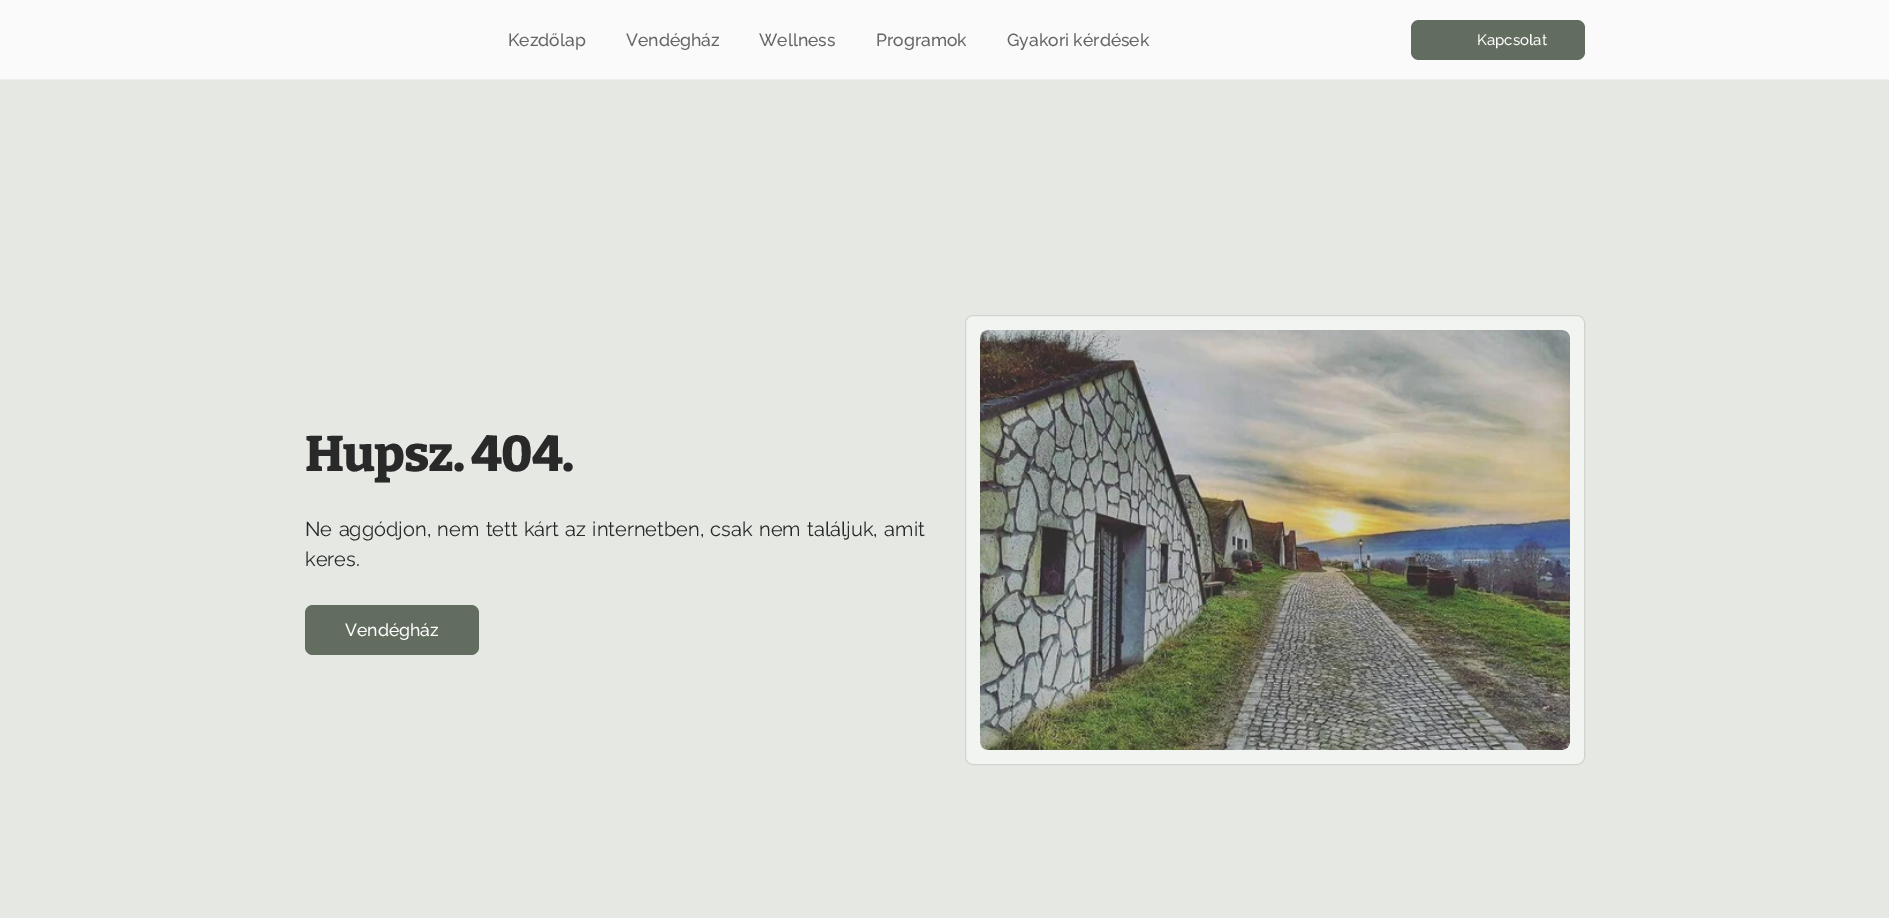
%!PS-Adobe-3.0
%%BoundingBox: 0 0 1889 918
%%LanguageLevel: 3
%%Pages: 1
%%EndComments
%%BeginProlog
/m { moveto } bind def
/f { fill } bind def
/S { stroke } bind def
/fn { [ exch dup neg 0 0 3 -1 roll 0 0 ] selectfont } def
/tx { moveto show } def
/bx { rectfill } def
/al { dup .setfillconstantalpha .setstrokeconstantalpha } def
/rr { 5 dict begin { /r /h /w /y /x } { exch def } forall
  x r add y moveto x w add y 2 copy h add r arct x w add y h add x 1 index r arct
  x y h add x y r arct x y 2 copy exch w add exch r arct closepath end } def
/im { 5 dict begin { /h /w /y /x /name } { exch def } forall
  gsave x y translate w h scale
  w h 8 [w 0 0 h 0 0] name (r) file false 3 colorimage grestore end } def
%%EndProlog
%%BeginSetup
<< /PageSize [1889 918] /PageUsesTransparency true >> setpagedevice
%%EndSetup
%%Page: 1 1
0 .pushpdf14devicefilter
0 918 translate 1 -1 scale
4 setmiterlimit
0.98 setgray
0 0 1889 918 bx
/Raleway-Medium 17.5 fn
0.396 setgray
(Kezdőlap) 508 46 tx
(Vendégház) 626 46 tx
(Wellness) 759 46 tx
(Programok) 876 46 tx
(Gyakori kérdések) 1007 46 tx
0.388 0.427 0.373 setrgbcolor
1411 20 174 40 8 rr f
/Raleway-Medium 15 fn
0.996 setgray
(Kapcsolat) 1477 45 tx
0.937 setgray
0 79 1889 1 bx
0.898 0.91 0.89 setrgbcolor
0 80 1889 838 bx
/Bitter-ExtraBold 50 fn
0.161 setgray
305 471 m -1 0 (Hupsz. 404.) ashow
/Raleway-Regular 20 fn
305 536 m 1.25 0 32 (Ne aggódjon, nem tett kárt az internetben, csak nem találjuk, amit) widthshow
(keres.) 305 566 tx
0.388 0.427 0.373 setrgbcolor
305 605 174 50 8 rr f
/Raleway-Medium 17.5 fn
0.996 setgray
(Vendégház) 345 636 tx
0.949 0.957 0.949 setrgbcolor
965 315 620 450 8 rr f
(image0.raw) 980 330 590 420 im
0.8 al
0.78 0.8 0.765 setrgbcolor
965.5 315.5 619 449 7.5 rr S
.poppdf14devicefilter showpage
%%EOF
